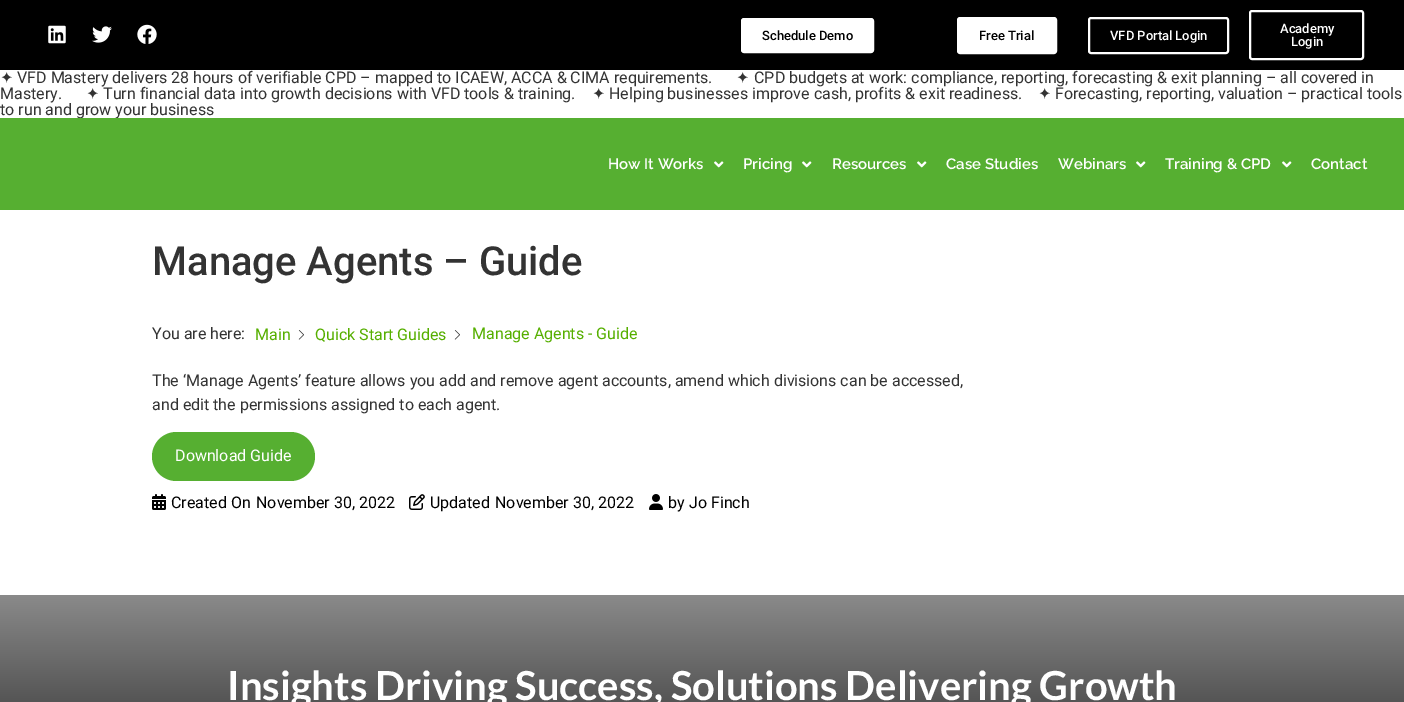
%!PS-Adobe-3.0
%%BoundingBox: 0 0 1404 702
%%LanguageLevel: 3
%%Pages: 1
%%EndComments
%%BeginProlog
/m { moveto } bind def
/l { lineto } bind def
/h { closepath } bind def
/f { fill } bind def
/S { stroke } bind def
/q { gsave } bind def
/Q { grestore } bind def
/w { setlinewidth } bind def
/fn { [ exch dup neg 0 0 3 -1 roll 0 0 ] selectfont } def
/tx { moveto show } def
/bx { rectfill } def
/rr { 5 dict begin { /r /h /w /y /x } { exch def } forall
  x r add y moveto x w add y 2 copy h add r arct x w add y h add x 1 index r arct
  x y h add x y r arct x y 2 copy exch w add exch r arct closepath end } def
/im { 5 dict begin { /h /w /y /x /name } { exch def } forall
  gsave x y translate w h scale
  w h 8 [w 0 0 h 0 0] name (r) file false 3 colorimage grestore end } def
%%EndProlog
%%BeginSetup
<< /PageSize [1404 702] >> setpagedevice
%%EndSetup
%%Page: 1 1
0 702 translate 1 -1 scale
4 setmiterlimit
1 setgray
0 0 1404 702 bx
0 setgray
0 0 1404 70 bx
(image0.raw) 48 25 18 19 im
(image1.raw) 92 26 20 17 im
(image2.raw) 137 24 20 20 im
1 setgray
741.5 18.5 132 34 2.5 rr q f Q
S
/Roboto-Medium 13 fn
0 setgray
(Schedule Demo) 762 40 tx
1 setgray
958 18 98 35 2 rr q f Q
2 w
S
0 setgray
(Free Trial) 979 40 tx
1 setgray
1089 18 139 35 2 rr S
(VFD Portal Login) 1110 40 tx
1250 11 113 48 2 rr S
(Academy) 1280 33 tx
(Login) 1291 46 tx
/DejaVuSans-Regular 16 fn
0.2 setgray
(✦) 0 83 tx
/Roboto-Regular 16 fn
(VFD Mastery delivers 28 hours of verifiable CPD – mapped to ICAEW, ACCA & CIMA requirements.) 17 83 tx
/DejaVuSans-Regular 16 fn
(✦) 736 83 tx
/Roboto-Regular 16 fn
(CPD budgets at work: compliance, reporting, forecasting & exit planning – all covered in) 754 83 tx
(Mastery.) 0 99 tx
/DejaVuSans-Regular 16 fn
(✦) 86 99 tx
/Roboto-Regular 16 fn
(Turn financial data into growth decisions with VFD tools & training.) 103 99 tx
/DejaVuSans-Regular 16 fn
(✦) 592 99 tx
/Roboto-Regular 16 fn
(Helping businesses improve cash, profits & exit readiness.) 609 99 tx
/DejaVuSans-Regular 16 fn
(✦) 1038 99 tx
/Roboto-Regular 16 fn
(Forecasting, reporting, valuation – practical tools) 1055 99 tx
(to run and grow your business) 0 115 tx
0.337 0.686 0.192 setrgbcolor
0 118 1404 92 bx
/Raleway-SemiBold 15 fn
1 setgray
(How It Works) 608 169 tx
(image3.raw) 714 161 10 7 im
(Pricing) 743 169 tx
(image3.raw) 802 161 10 7 im
(Resources) 832 169 tx
(image3.raw) 917 161 10 7 im
(Case Studies) 946 169 tx
(Webinars) 1058 169 tx
(image3.raw) 1136 161 10 7 im
(Training & CPD) 1165 169 tx
(image3.raw) 1282 161 10 7 im
(Contact) 1311 169 tx
/Roboto-Medium 40 fn
0.2 setgray
(Manage Agents – Guide) 152 275 tx
/Roboto-Regular 16 fn
(You are here:) 152 339 tx
0.337 0.686 0 setrgbcolor
(Main) 255 340 tx
(image4.raw) 298 330 6 10 im
(Quick Start Guides) 315 340 tx
(image4.raw) 454 330 6 10 im
(Manage Agents - Guide) 472 339 tx
0.2 setgray
(The ‘Manage Agents’ feature allows you add and remove agent accounts, amend which divisions can be accessed,) 152 386 tx
(and edit the permissions assigned to each agent.) 152 410 tx
0.337 0.686 0.192 setrgbcolor
152 432 163 49 24.5 rr f
1 setgray
(Download Guide) 175 461 tx
(image5.raw) 152 494 14 16 im
0 setgray
(Created On) 171 508 tx
(November 30, 2022) 256 508 tx
(image6.raw) 409 494 16 16 im
(Updated) 430 508 tx
(November 30, 2022) 495 508 tx
(image7.raw) 649 494 14 16 im
(by) 668 508 tx
(Jo Finch) 689 508 tx
q 0 595 m 1404 595 l 1404 702 l 0 702 l h clip newpath
<< /ShadingType 2 /ColorSpace /DeviceRGB /Coords [702 595 702 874] /Extend [true true] /Function << /FunctionType 2 /Domain [0 1] /C0 [0.541 0.541 0.541] /C1 [0 0 0] /N 1 >> >> shfill Q
/Lato-Bold 40 fn
1 setgray
(Insights Driving Success, Solutions Delivering Growth) 227 700 tx
showpage
%%EOF
